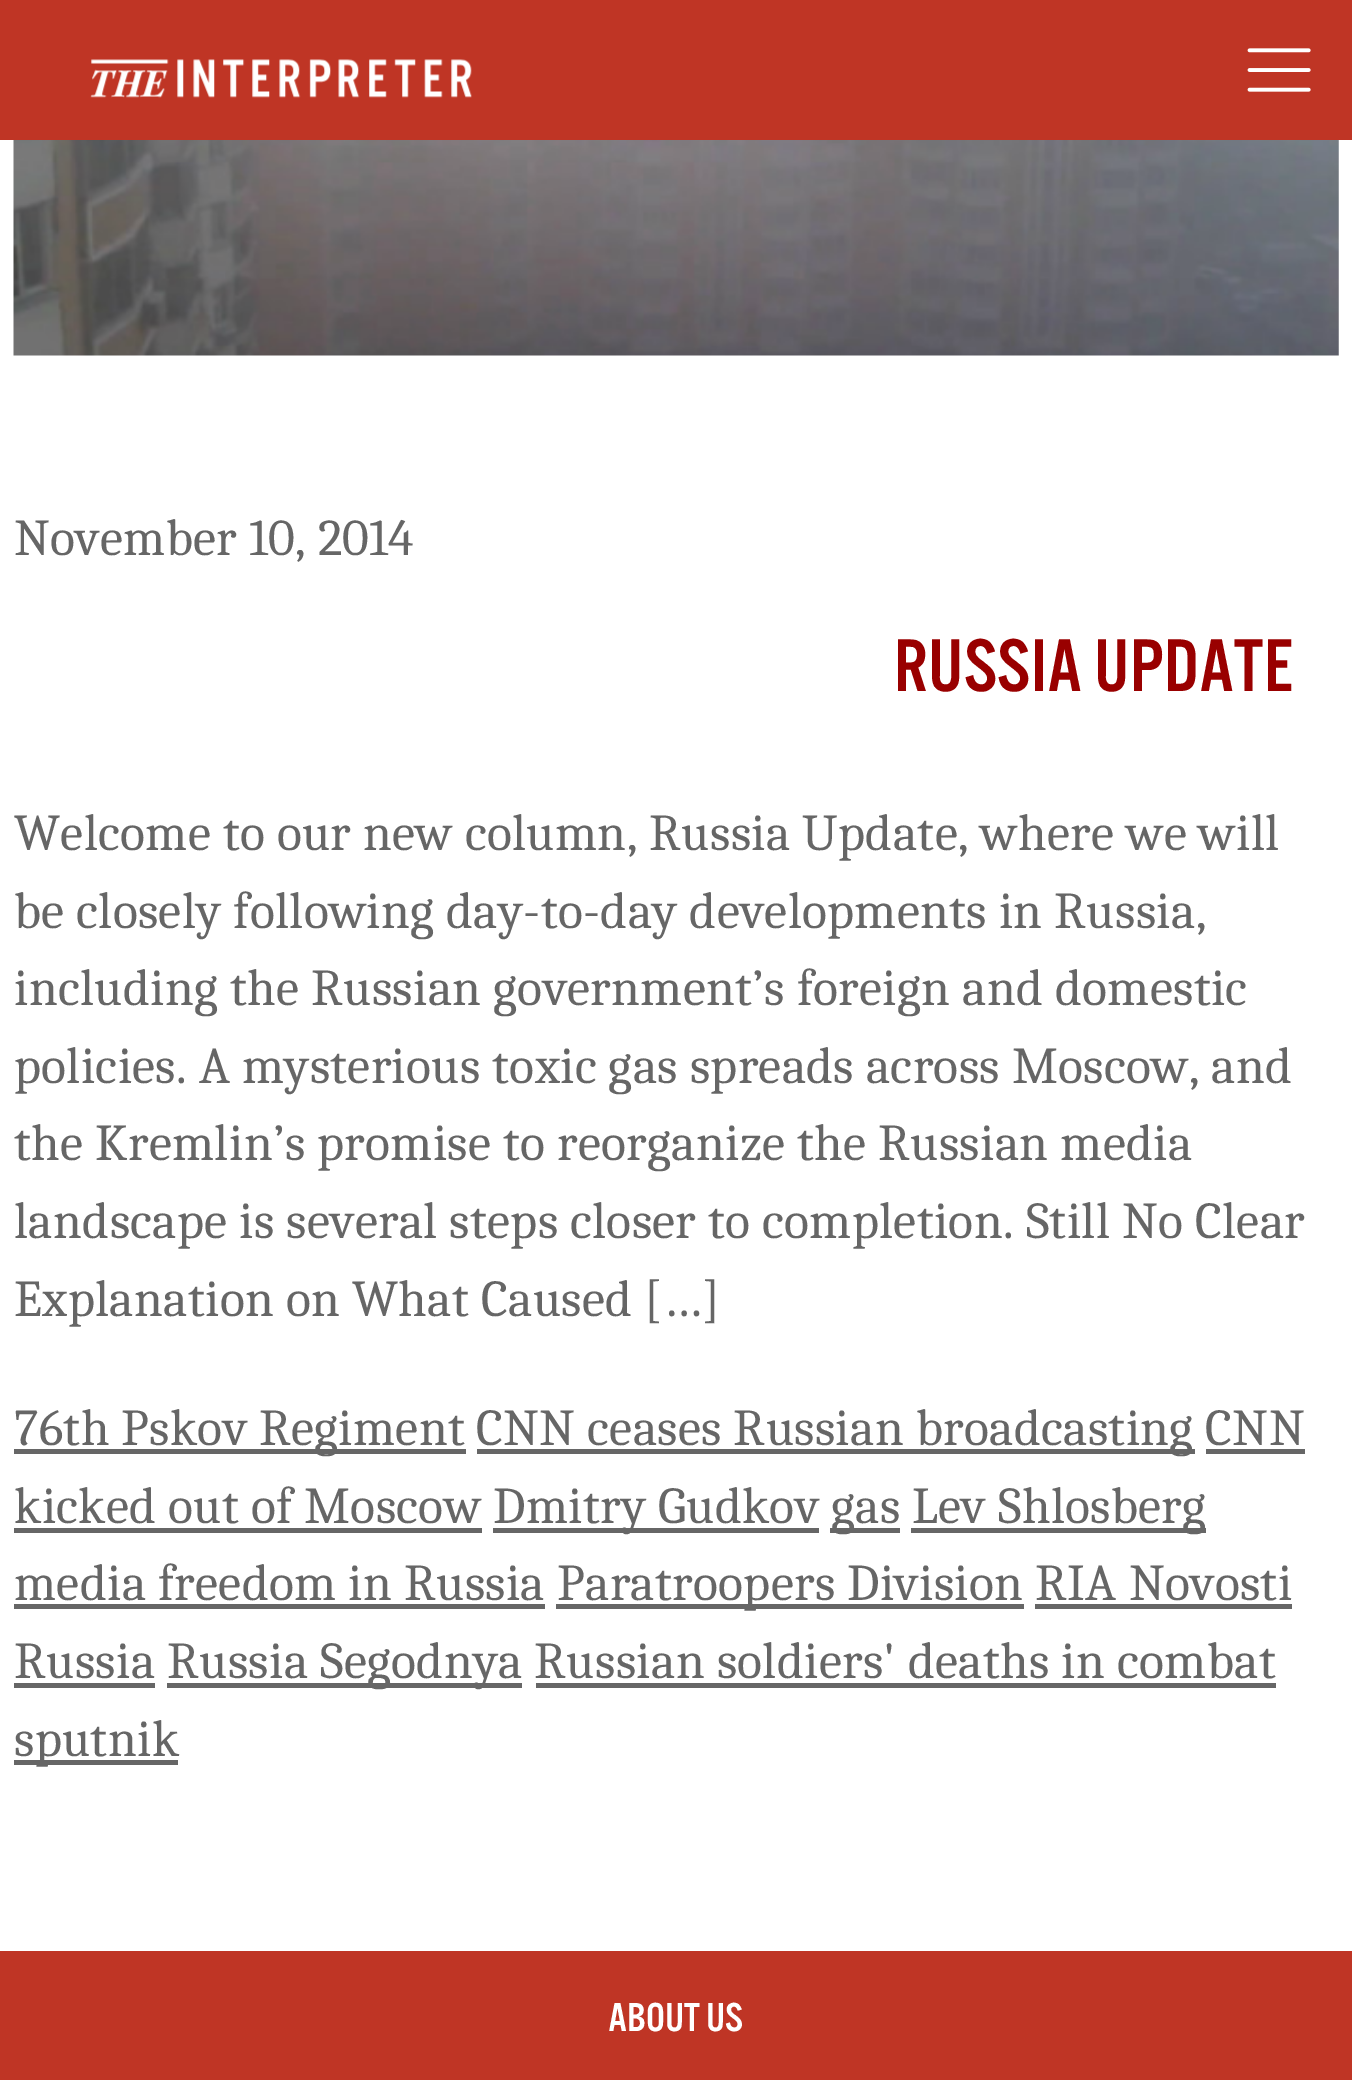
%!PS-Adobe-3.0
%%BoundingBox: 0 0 1352 2080
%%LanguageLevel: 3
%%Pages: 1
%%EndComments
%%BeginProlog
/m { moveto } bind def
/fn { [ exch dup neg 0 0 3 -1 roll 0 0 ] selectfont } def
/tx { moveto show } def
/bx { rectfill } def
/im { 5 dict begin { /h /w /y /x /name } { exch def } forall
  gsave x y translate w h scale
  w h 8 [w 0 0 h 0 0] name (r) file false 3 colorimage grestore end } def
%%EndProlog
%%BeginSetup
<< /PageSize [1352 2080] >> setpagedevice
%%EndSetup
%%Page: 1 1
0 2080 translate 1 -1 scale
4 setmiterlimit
1 setgray
0 0 1352 2080 bx
0.749 0.208 0.145 setrgbcolor
0 0 1352 140 bx
(image0.raw) 90 59 382 39 im
(image1.raw) 1247 48 64 44 im
(image2.raw) 13 140 1326 216 im
/Caladea-Regular 51.75 fn
0.4 setgray
14 555 m 0.35 0 (November 10, 2014) ashow
/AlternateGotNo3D-Regular 77.5 fn
0.6 0 0 setrgbcolor
894 691 m 0.35 0 (RUSSIA UPDATE) ashow
/Caladea-Regular 51.75 fn
0.4 setgray
14 850 m 0.35 0 (Welcome to our new column, Russia Update, where we will) ashow
14 928 m 0.35 0 (be closely following day-to-day developments in Russia,) ashow
14 1005 m 0.35 0 (including the Russian government’s foreign and domestic) ashow
14 1083 m 0.35 0 (policies. A mysterious toxic gas spreads across Moscow, and) ashow
14 1160 m 0.35 0 (the Kremlin’s promise to reorganize the Russian media) ashow
14 1238 m 0.35 0 (landscape is several steps closer to completion. Still No Clear) ashow
14 1316 m 0.35 0 (Explanation on What Caused […]) ashow
14 1449 452 5 bx
14 1445 m 0.35 0 (76th Pskov Regiment) ashow
477 1449 718 5 bx
476 1445 m 0.35 0 (CNN ceases Russian broadcasting CNN) ashow
14 1523 m 0.35 0 (kicked out of Moscow) ashow
1206 1449 99 5 bx
14 1528 468 5 bx
493 1528 326 5 bx
493 1523 m 0.35 0 (Dmitry Gudkov) ashow
830 1528 70 5 bx
831 1523 m 0.35 0 (gas) ashow
911 1528 295 5 bx
912 1523 m 0.35 0 (Lev Shlosberg) ashow
14 1600 m 0.35 0 (media freedom in Russia) ashow
14 1604 531 5 bx
556 1604 468 5 bx
557 1600 m 0.35 0 (Paratroopers Division RIA Novosti) ashow
1035 1604 257 5 bx
14 1678 m 0.35 0 (Russia) ashow
14 1683 141 5 bx
167 1683 355 5 bx
167 1678 m 0.35 0 (Russia Segodnya Russian soldiers' deaths in combat) ashow
536 1683 740 5 bx
14 1760 164 5 bx
14 1756 m 0.35 0 (sputnik) ashow
0.749 0.208 0.145 setrgbcolor
0 1951 1352 129 bx
/AlternateGotNo3D-Regular 42 fn
1 setgray
(ABOUT US) 608 2031 tx
showpage
%%EOF
